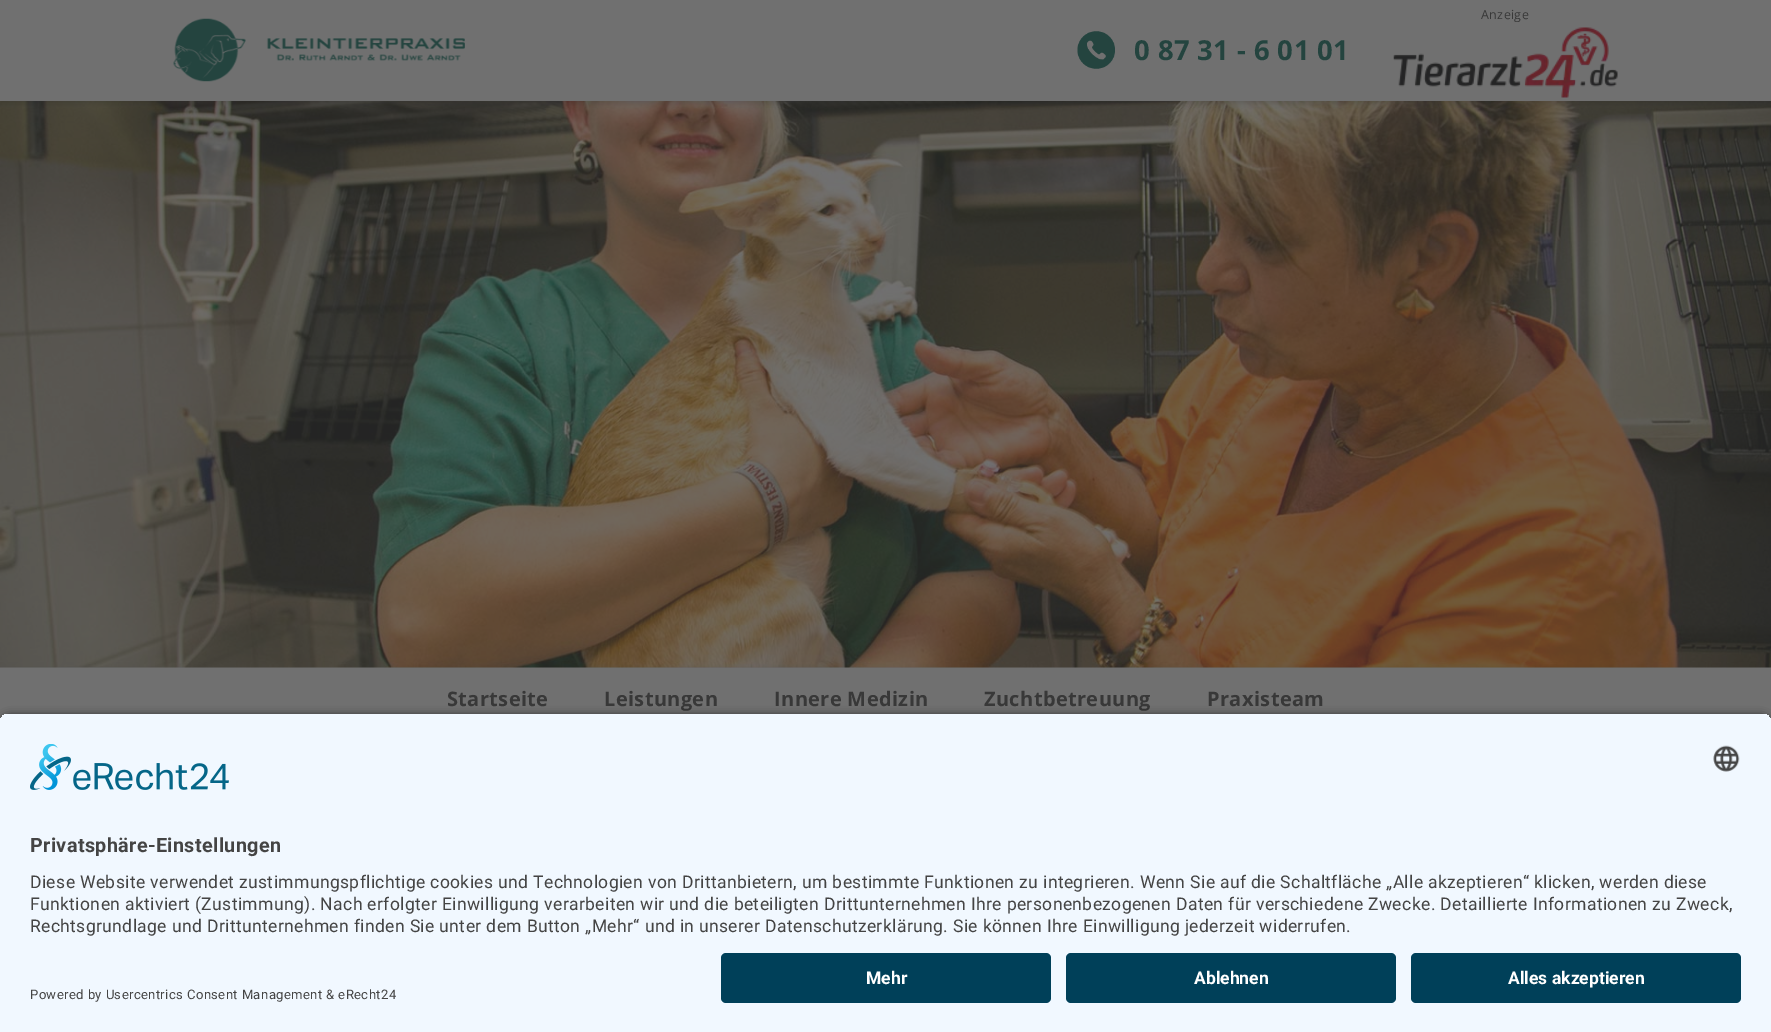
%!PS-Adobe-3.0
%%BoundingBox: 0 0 1771 1032
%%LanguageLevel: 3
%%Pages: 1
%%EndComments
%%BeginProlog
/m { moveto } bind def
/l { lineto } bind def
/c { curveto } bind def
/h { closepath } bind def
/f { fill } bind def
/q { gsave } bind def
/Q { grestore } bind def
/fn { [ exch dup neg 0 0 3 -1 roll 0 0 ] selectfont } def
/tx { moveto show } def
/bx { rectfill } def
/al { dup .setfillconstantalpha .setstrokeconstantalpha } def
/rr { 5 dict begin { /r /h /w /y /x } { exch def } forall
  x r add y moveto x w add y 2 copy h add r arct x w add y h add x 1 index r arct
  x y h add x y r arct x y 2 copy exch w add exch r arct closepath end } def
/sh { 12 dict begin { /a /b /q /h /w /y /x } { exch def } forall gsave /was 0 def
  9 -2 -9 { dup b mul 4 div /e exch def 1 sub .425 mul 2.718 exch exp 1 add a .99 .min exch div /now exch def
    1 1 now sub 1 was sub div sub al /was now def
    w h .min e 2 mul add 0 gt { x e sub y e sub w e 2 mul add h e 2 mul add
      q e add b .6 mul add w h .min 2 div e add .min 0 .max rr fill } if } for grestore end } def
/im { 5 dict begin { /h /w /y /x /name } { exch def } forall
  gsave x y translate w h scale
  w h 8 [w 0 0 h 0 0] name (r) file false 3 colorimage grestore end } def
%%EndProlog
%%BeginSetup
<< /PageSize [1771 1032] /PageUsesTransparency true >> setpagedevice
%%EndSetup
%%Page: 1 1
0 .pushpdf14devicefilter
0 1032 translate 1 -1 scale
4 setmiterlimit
0.439 setgray
0 0 1771 1032 bx
(image3.raw) 0 101 1771 567 im
0.141 setgray
0 3 1771 101 0 3 0.2 sh
0.439 setgray
0 0 1771 101 bx
/OpenSans-Regular 12.5 fn
0.22 setgray
1481 19 m 0.38 0 (Anzeige) ashow
(image0.raw) 1393 27 225 71 im
(image1.raw) 173 18 292 64 im
(image2.raw) 1077 31 38 38 im
/OpenSans-Bold 27.5 fn
0.141 0.267 0.247 setrgbcolor
1134 60 m 0.38 0 (0 87 31 - 6 01 01) ashow
0.141 setgray
0 670 1771 63 0 3 0.2 sh
0.439 setgray
0 668 1771 55 bx
/OpenSans-Bold 20 fn
0.22 setgray
447 706 m 0.38 0 (Startseite) ashow
604 706 m 0.38 0 (Leistungen) ashow
774 706 m 0.38 0 (Innere Medizin) ashow
984 706 m 0.38 0 (Zuchtbetreuung) ashow
1207 706 m 0.38 0 (Praxisteam) ashow
0 setgray
0 716 1771 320 10 4.5 0.8 sh
q
10 713 m 1761 713 l 1766.5 713 1771 717.5 1771 723 c 1771 943 l 0 943 l 0 723 l 0 717.5 4.5 713 10 713 c h clip newpath
0.945 0.973 1 setrgbcolor
0 714 1771 229 bx
Q
(image4.raw) 30 744 199 46 im
(image5.raw) 1713 745 27 27 im
/Roboto-Bold 19.75 fn
0.267 setgray
30 852 m 0.38 0 (Privatsphäre-Einstellungen) ashow
/Roboto-Regular 17.5 fn
30 888 m 0.38 0 (Diese Website verwendet zustimmungspflichtige cookies und Technologien von Drittanbietern, um bestimmte Funktionen zu integrieren. Wenn Sie auf die Schaltfläche „Alle akzeptieren“ klicken, werden diese) ashow
30 910 m 0.38 0 (Funktionen aktiviert \(Zustimmung\). Nach erfolgter Einwilligung verarbeiten wir und die beteiligten Drittunternehmen Ihre personenbezogenen Daten für verschiedene Zwecke. Detaillierte Informationen zu Zweck,) ashow
30 932 m 0.38 0 (Rechtsgrundlage und Drittunternehmen finden Sie unter dem Button „Mehr“ und in unserer Datenschutzerklärung. Sie können Ihre Einwilligung jederzeit widerrufen.) ashow
0.945 0.973 1 setrgbcolor
0 943 1771 89 bx
0 0.251 0.349 setrgbcolor
721 953 330 50 5 rr f
/Roboto-Bold 17.5 fn
1 setgray
(Mehr) 866 984 tx
0 0.251 0.349 setrgbcolor
1066 953 330 50 5 rr f
1 setgray
(Ablehnen) 1194 984 tx
0 0.251 0.349 setrgbcolor
1411 953 330 50 5 rr f
1 setgray
(Alles akzeptieren) 1508 984 tx
/Roboto-Regular 13.1 fn
0.267 setgray
30 999 m 0.38 0 (Powered by Usercentrics Consent Management & eRecht24) ashow
.poppdf14devicefilter showpage
%%EOF
